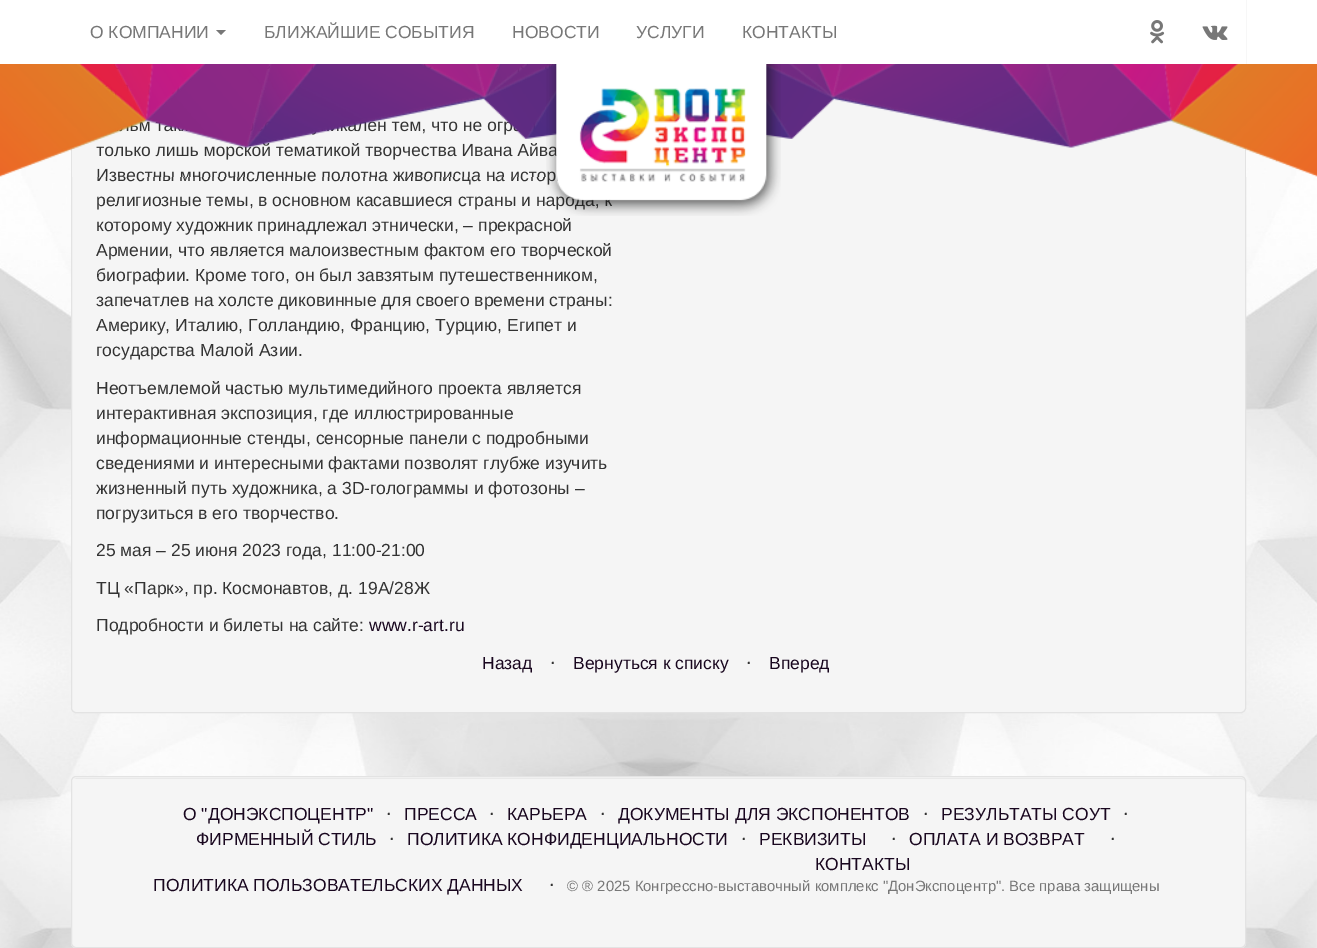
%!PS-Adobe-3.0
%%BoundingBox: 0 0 1317 948
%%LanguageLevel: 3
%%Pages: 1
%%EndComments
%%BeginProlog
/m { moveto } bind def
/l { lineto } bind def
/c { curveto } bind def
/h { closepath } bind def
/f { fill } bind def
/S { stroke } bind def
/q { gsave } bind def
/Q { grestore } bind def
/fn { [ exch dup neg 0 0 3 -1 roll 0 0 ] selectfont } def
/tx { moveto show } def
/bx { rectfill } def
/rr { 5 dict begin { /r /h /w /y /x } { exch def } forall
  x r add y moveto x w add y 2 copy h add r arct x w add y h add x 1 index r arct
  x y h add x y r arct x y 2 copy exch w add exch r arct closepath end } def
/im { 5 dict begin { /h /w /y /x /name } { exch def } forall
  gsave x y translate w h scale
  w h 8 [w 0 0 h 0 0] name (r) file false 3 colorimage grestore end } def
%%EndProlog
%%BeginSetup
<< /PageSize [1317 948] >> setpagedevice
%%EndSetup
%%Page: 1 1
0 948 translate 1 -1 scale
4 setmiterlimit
1 setgray
0 0 1317 948 bx
(image0.raw) 0 147 1317 801 im
0.961 setgray
71.5 -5.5 1174 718 4.5 rr q f Q
0.89 setgray
S
1 setgray
71 0 1175 64 bx
/LiberationSans-Regular 17.5 fn
0.467 setgray
(О КОМПАНИИ) 90 38 tx
216 30 m 226 30 l 221 35 l h f
(БЛИЖАЙШИЕ СОБЫТИЯ) 264 38 tx
(НОВОСТИ) 512 38 tx
(УСЛУГИ) 636 38 tx
(КОНТАКТЫ) 742 38 tx
(image1.raw) 1150 20 15 24 im
(image2.raw) 1202 25 26 15 im
0.2 setgray
(м) 139 131 tx
(ен тем, что не ог) 367 131 tx
(только лишь морской тематикой творчества Ивана Айва) 96 156 tx
(Известны многочисленные полотна живописца на истор) 96 181 tx
(image3.raw) 0 64 1317 113 im
(религиозные темы, в основном касавшиеся страны и народа, к) 96 206 tx
(image4.raw) 546 64 235 152 im
(которому художник принадлежал этнически, – прекрасной) 96 231 tx
(Армении, что является малоизвестным фактом его творческой) 96 256 tx
(биографии. Кроме того, он был завзятым путешественником,) 96 281 tx
(запечатлев на холсте диковинные для своего времени страны:) 96 306 tx
(Америку, Италию, Голландию, Францию, Турцию, Египет и) 96 331 tx
(государства Малой Азии.) 96 356 tx
(Неотъемлемой частью мультимедийного проекта является) 96 394 tx
(интерактивная экспозиция, где иллюстрированные) 96 419 tx
(информационные стенды, сенсорные панели с подробными) 96 444 tx
(сведениями и интересными фактами позволят глубже изучить) 96 469 tx
(жизненный путь художника, а 3D-голограммы и фотозоны –) 96 494 tx
(погрузиться в его творчество.) 96 519 tx
(25 мая – 25 июня 2023 года, 11:00-21:00) 96 556 tx
(ТЦ «Парк», пр. Космонавтов, д. 19А/28Ж) 96 594 tx
(Подробности и билеты на сайте:) 96 631 tx
0.098 0.027 0.122 setrgbcolor
(www.r-art.ru) 369 631 tx
(Назад) 482 669 tx
/DejaVuSans-Regular 17.5 fn
0.2 setgray
(⋅) 550 669 tx
/LiberationSans-Regular 17.5 fn
0.098 0.027 0.122 setrgbcolor
(Вернуться к списку) 573 669 tx
/DejaVuSans-Regular 17.5 fn
0.2 setgray
(⋅) 746 669 tx
/LiberationSans-Regular 17.5 fn
0.098 0.027 0.122 setrgbcolor
(Вперед) 769 669 tx
0.961 setgray
71 776 1175 172 5 rr f
0.914 setgray
76 779 m 1241 779 l 1243 779 1245 780 1245 782 c 1245 780 1243 778 1241 778 c 77 778 l 76 778 75 779 74 779 c h f
0.89 setgray
71.5 776.5 1174 171 4.5 rr S
0.098 0.027 0.122 setrgbcolor
(О "ДОНЭКСПОЦЕНТР") 183 820 tx
/DejaVuSans-Regular 17.5 fn
0.2 setgray
(⋅) 386 820 tx
/LiberationSans-Regular 17.5 fn
0.098 0.027 0.122 setrgbcolor
(ПРЕССА) 404 820 tx
/DejaVuSans-Regular 17.5 fn
0.2 setgray
(⋅) 489 820 tx
/LiberationSans-Regular 17.5 fn
0.098 0.027 0.122 setrgbcolor
(КАРЬЕРА) 507 820 tx
/DejaVuSans-Regular 17.5 fn
0.2 setgray
(⋅) 600 820 tx
/LiberationSans-Regular 17.5 fn
0.098 0.027 0.122 setrgbcolor
(ДОКУМЕНТЫ ДЛЯ ЭКСПОНЕНТОВ) 618 820 tx
/DejaVuSans-Regular 17.5 fn
0.2 setgray
(⋅) 923 820 tx
/LiberationSans-Regular 17.5 fn
0.098 0.027 0.122 setrgbcolor
(РЕЗУЛЬТАТЫ СОУТ) 941 820 tx
/DejaVuSans-Regular 17.5 fn
0.2 setgray
(⋅) 1123 820 tx
/LiberationSans-Regular 17.5 fn
0.098 0.027 0.122 setrgbcolor
(ФИРМЕННЫЙ СТИЛЬ) 196 845 tx
/DejaVuSans-Regular 17.5 fn
0.2 setgray
(⋅) 389 845 tx
/LiberationSans-Regular 17.5 fn
0.098 0.027 0.122 setrgbcolor
(ПОЛИТИКА КОНФИДЕНЦИАЛЬНОСТИ) 407 845 tx
/DejaVuSans-Regular 17.5 fn
0.2 setgray
(⋅) 741 845 tx
/LiberationSans-Regular 17.5 fn
0.098 0.027 0.122 setrgbcolor
(РЕКВИЗИТЫ) 759 845 tx
/DejaVuSans-Regular 17.5 fn
0.2 setgray
(⋅) 891 845 tx
/LiberationSans-Regular 17.5 fn
0.098 0.027 0.122 setrgbcolor
(ОПЛАТА И ВОЗВРАТ) 909 845 tx
/DejaVuSans-Regular 17.5 fn
0.2 setgray
(⋅) 1110 845 tx
/LiberationSans-Regular 17.5 fn
0.098 0.027 0.122 setrgbcolor
(ПОЛИТИКА ПОЛЬЗОВАТЕЛЬСКИХ ДАННЫХ) 153 891 tx
/DejaVuSans-Regular 17.5 fn
0.2 setgray
(⋅) 549 891 tx
/LiberationSans-Regular 17.5 fn
0.098 0.027 0.122 setrgbcolor
(КОНТАКТЫ) 815 870 tx
/LiberationSans-Regular 14.9 fn
0.467 setgray
(© ® 2025 Конгрессно-выставочный комплекс "ДонЭкспоцентр". Все права защищены) 567 891 tx
showpage
%%EOF
